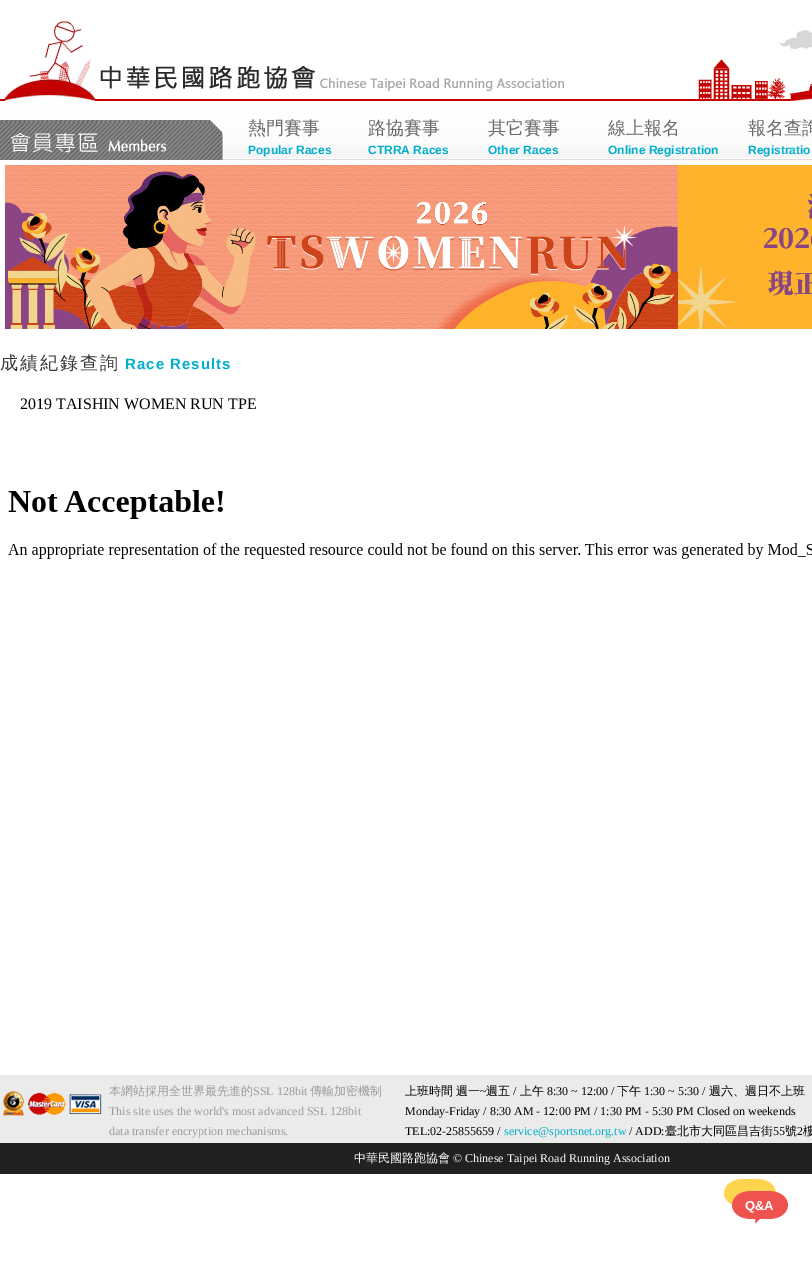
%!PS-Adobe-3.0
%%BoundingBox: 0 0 812 1273
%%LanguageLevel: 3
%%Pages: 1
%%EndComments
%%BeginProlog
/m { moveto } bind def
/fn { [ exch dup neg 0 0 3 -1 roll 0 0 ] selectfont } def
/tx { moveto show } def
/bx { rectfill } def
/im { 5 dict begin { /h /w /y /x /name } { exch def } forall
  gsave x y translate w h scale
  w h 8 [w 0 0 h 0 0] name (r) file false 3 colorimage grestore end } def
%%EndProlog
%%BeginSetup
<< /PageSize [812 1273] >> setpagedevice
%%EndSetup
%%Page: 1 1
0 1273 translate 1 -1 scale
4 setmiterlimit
1 setgray
0 0 812 1273 bx
(image0.raw) 0 20 812 140 im
(image1.raw) 0 20 98 81 im
(image2.raw) 0 122 223 38 im
/WenQuanYiZenHei-Medium 18 fn
0.412 setgray
(熱門賽事) 248 134 tx
/LiberationSans-Bold 12 fn
0.004 0.682 0.808 setrgbcolor
(Popular Races) 248 154 tx
/WenQuanYiZenHei-Medium 18 fn
0.412 setgray
(路協賽事) 368 134 tx
/LiberationSans-Bold 12 fn
0.004 0.682 0.808 setrgbcolor
(CTRRA Races) 368 154 tx
/WenQuanYiZenHei-Medium 18 fn
0.412 setgray
(其它賽事) 488 134 tx
/LiberationSans-Bold 12 fn
0.004 0.682 0.808 setrgbcolor
(Other Races) 488 154 tx
/WenQuanYiZenHei-Medium 18 fn
0.412 setgray
(線上報名) 608 134 tx
/LiberationSans-Bold 12 fn
0.004 0.682 0.808 setrgbcolor
(Online Registration) 608 154 tx
/WenQuanYiZenHei-Medium 18 fn
0.412 setgray
(報名查詢) 748 134 tx
/LiberationSans-Bold 12 fn
0.004 0.682 0.808 setrgbcolor
(Registratio) 748 154 tx
(image3.raw) 5 165 807 164 im
/WenQuanYiZenHei-Medium 18 fn
0.22 setgray
0 369 m 2 0 (成績紀錄查詢) ashow
/LiberationSans-Bold 15 fn
0.004 0.682 0.808 setrgbcolor
125 369 m 1 0 (Race Results) ashow
/LiberationSerif-Regular 16 fn
0 setgray
(2019 TAISHIN WOMEN RUN TPE) 20 409 tx
(image4.raw) 8 490 804 69 im
(image5.raw) 0 1075 812 99 im
(image6.raw) 3 1091 99 25 im
/WenQuanYiZenHei-Medium 12 fn
0.612 setgray
(本網站採用全世界最先進的) 109 1095 tx
/LiberationSerif-Regular 12 fn
(SSL 128bit) 253 1095 tx
/WenQuanYiZenHei-Medium 12 fn
(傳輸加密機制) 310 1095 tx
/LiberationSerif-Regular 12 fn
(This site uses the world's most advanced SSL 128bit) 109 1115 tx
(data transfer encryption mechanisms.) 109 1135 tx
/WenQuanYiZenHei-Medium 12 fn
0 setgray
(上班時間) 405 1095 tx
(週一) 456 1095 tx
/LiberationSerif-Regular 12 fn
(~) 480 1095 tx
/WenQuanYiZenHei-Medium 12 fn
(週五) 486 1095 tx
/LiberationSerif-Regular 12 fn
(/) 513 1095 tx
/WenQuanYiZenHei-Medium 12 fn
(上午) 520 1095 tx
/LiberationSerif-Regular 12 fn
(8:30 ~ 12:00 /) 547 1095 tx
/WenQuanYiZenHei-Medium 12 fn
(下午) 617 1095 tx
/LiberationSerif-Regular 12 fn
(1:30 ~ 5:30 /) 644 1095 tx
/WenQuanYiZenHei-Medium 12 fn
(週六、週日不上班) 709 1095 tx
/LiberationSerif-Regular 12 fn
(Monday-Friday / 8:30 AM - 12:00 PM / 1:30 PM - 5:30 PM Closed on weekends) 405 1115 tx
(TEL:02-25855659 /) 405 1135 tx
0.004 0.682 0.808 setrgbcolor
(service@sportsnet.org.tw) 504 1135 tx
0 setgray
(/ ADD:) 629 1135 tx
/WenQuanYiZenHei-Medium 12 fn
(臺北市大同區昌吉街) 665 1135 tx
/LiberationSerif-Regular 12 fn
(55) 773 1135 tx
/WenQuanYiZenHei-Medium 12 fn
(號) 785 1135 tx
/LiberationSerif-Regular 12 fn
(2) 797 1135 tx
/WenQuanYiZenHei-Medium 12 fn
(樓) 803 1135 tx
1 setgray
(中華民國路跑協會) 354 1162 tx
/LiberationSerif-Regular 12 fn
(© Chinese Taipei Road Running Association) 453 1162 tx
(image7.raw) 724 1179 64 45 im
/LiberationSans-Bold 13 fn
(Q&A) 745 1210 tx
showpage
%%EOF
